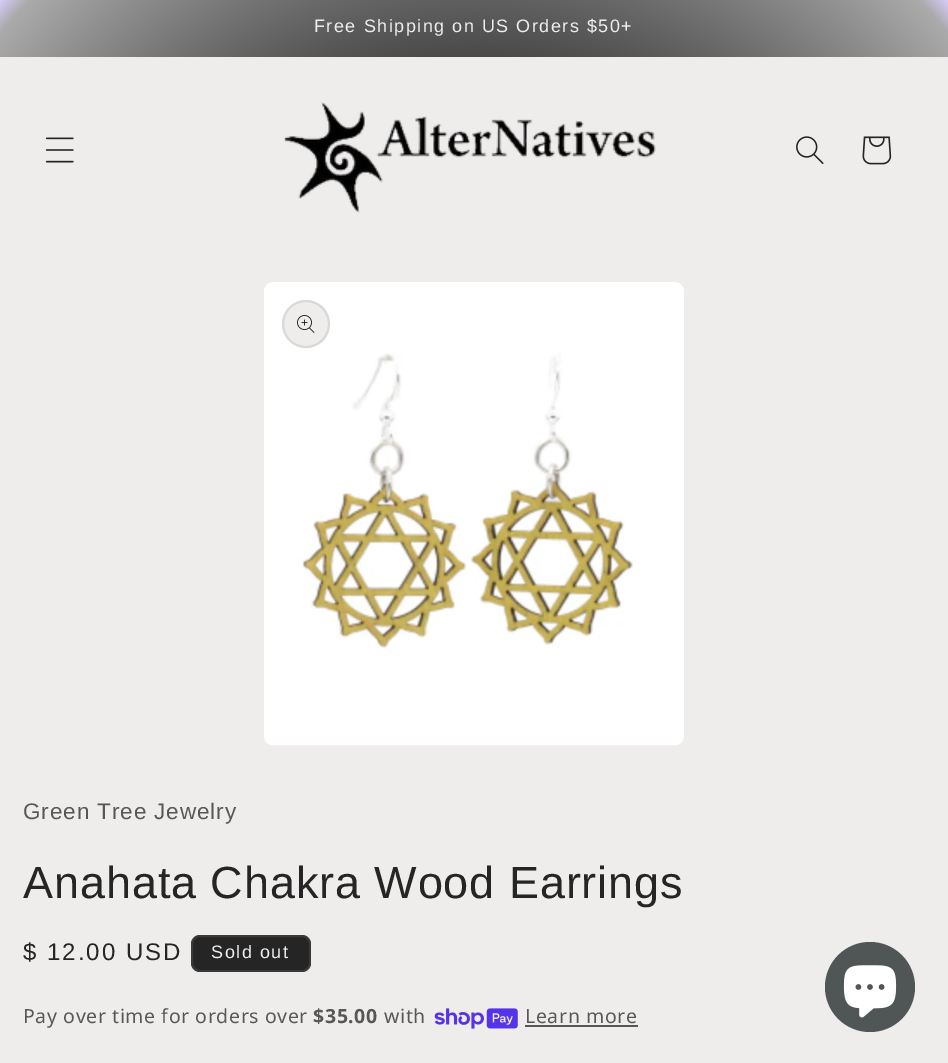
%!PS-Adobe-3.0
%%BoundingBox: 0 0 948 1063
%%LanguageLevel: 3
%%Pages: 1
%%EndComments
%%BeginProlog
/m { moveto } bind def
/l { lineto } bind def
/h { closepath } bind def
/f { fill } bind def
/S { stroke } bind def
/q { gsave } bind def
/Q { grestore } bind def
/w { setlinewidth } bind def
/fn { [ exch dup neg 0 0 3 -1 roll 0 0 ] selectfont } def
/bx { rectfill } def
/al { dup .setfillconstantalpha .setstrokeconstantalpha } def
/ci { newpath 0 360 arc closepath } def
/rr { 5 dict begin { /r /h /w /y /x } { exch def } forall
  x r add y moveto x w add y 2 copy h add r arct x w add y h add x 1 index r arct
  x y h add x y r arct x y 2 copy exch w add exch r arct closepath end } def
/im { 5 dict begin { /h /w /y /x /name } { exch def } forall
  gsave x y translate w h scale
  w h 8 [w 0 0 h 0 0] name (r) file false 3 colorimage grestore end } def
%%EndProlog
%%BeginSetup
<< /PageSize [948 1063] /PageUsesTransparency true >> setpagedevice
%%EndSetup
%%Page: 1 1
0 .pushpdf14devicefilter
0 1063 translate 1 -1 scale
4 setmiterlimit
0.937 0.925 0.925 setrgbcolor
0 0 948 1063 bx
q 0 0 m 948 0 l 948 57 l 0 57 l h clip newpath 474 532 translate 670 752 scale
<< /ShadingType 3 /ColorSpace /DeviceRGB /Coords [0 0 0 0 0 1] /Extend [true true] /Function << /FunctionType 3 /Domain [0 1] /Functions [<< /FunctionType 2 /Domain [0 1] /C0 [0.267 0.267 0.267] /C1 [0.267 0.267 0.267] /N 1 >> << /FunctionType 2 /Domain [0 1] /C0 [0.267 0.267 0.267] /C1 [0.667 0.667 0.667] /N 1 >> << /FunctionType 2 /Domain [0 1] /C0 [0.667 0.667 0.667] /C1 [0.843 0.8 0.98] /N 1 >>] /Bounds [0.61 0.97] /Encode [0 1 0 1 0 1] >> >> shfill Q
/LiberationSans-Regular 18 fn
314 32 m 1.5 0 (Free Shipping on US Orders $50+) ashow
(image0.raw) 45 137 29 26 im
(image1.raw) 284 102 372 111 im
(image2.raw) 796 136 28 28 im
(image3.raw) 862 136 30 29 im
(image4.raw) 264 282 420 464 im
306 324 24 ci f
0.1 al
0.145 setgray
2 w
306 324 23 ci S
1 al
(image5.raw) 297 315 18 18 im
/LiberationSans-Regular 22.5 fn
0.345 0.341 0.341 setrgbcolor
23 819 m 0.9 0 (Green Tree Jewelry) ashow
/LiberationSans-Regular 45 fn
0.145 setgray
23 898 m 0.9 0 (Anahata Chakra Wood Earrings) ashow
/LiberationSans-Regular 24 fn
23 960 m 2 0 ($ 12.00 USD) ashow
191 935 120 37 9 rr f
0.1 al
0.937 0.925 0.925 setrgbcolor
192 936 118 35 8 rr S
/LiberationSans-Regular 18 fn
1 al
211 958 m 1.5 0 (Sold out) ashow
/NotoSans-Regular 19.5 fn
0.345 0.341 0.341 setrgbcolor
23 1023 m 0.6 0 (Pay over time for orders over) ashow
/NotoSans-Bold 19.5 fn
313 1023 m 0.6 0 ($35.00) ashow
/NotoSans-Regular 19.5 fn
384 1023 m 0.6 0 (with) ashow
(image6.raw) 434 1008 84 21 im
525 1023 m 0.6 0 (Learn more) ashow
525 1025 113 2 bx
0.314 0.337 0.333 setrgbcolor
870 987 45 ci f
(image7.raw) 843 965 54 53 im
.poppdf14devicefilter showpage
%%EOF
